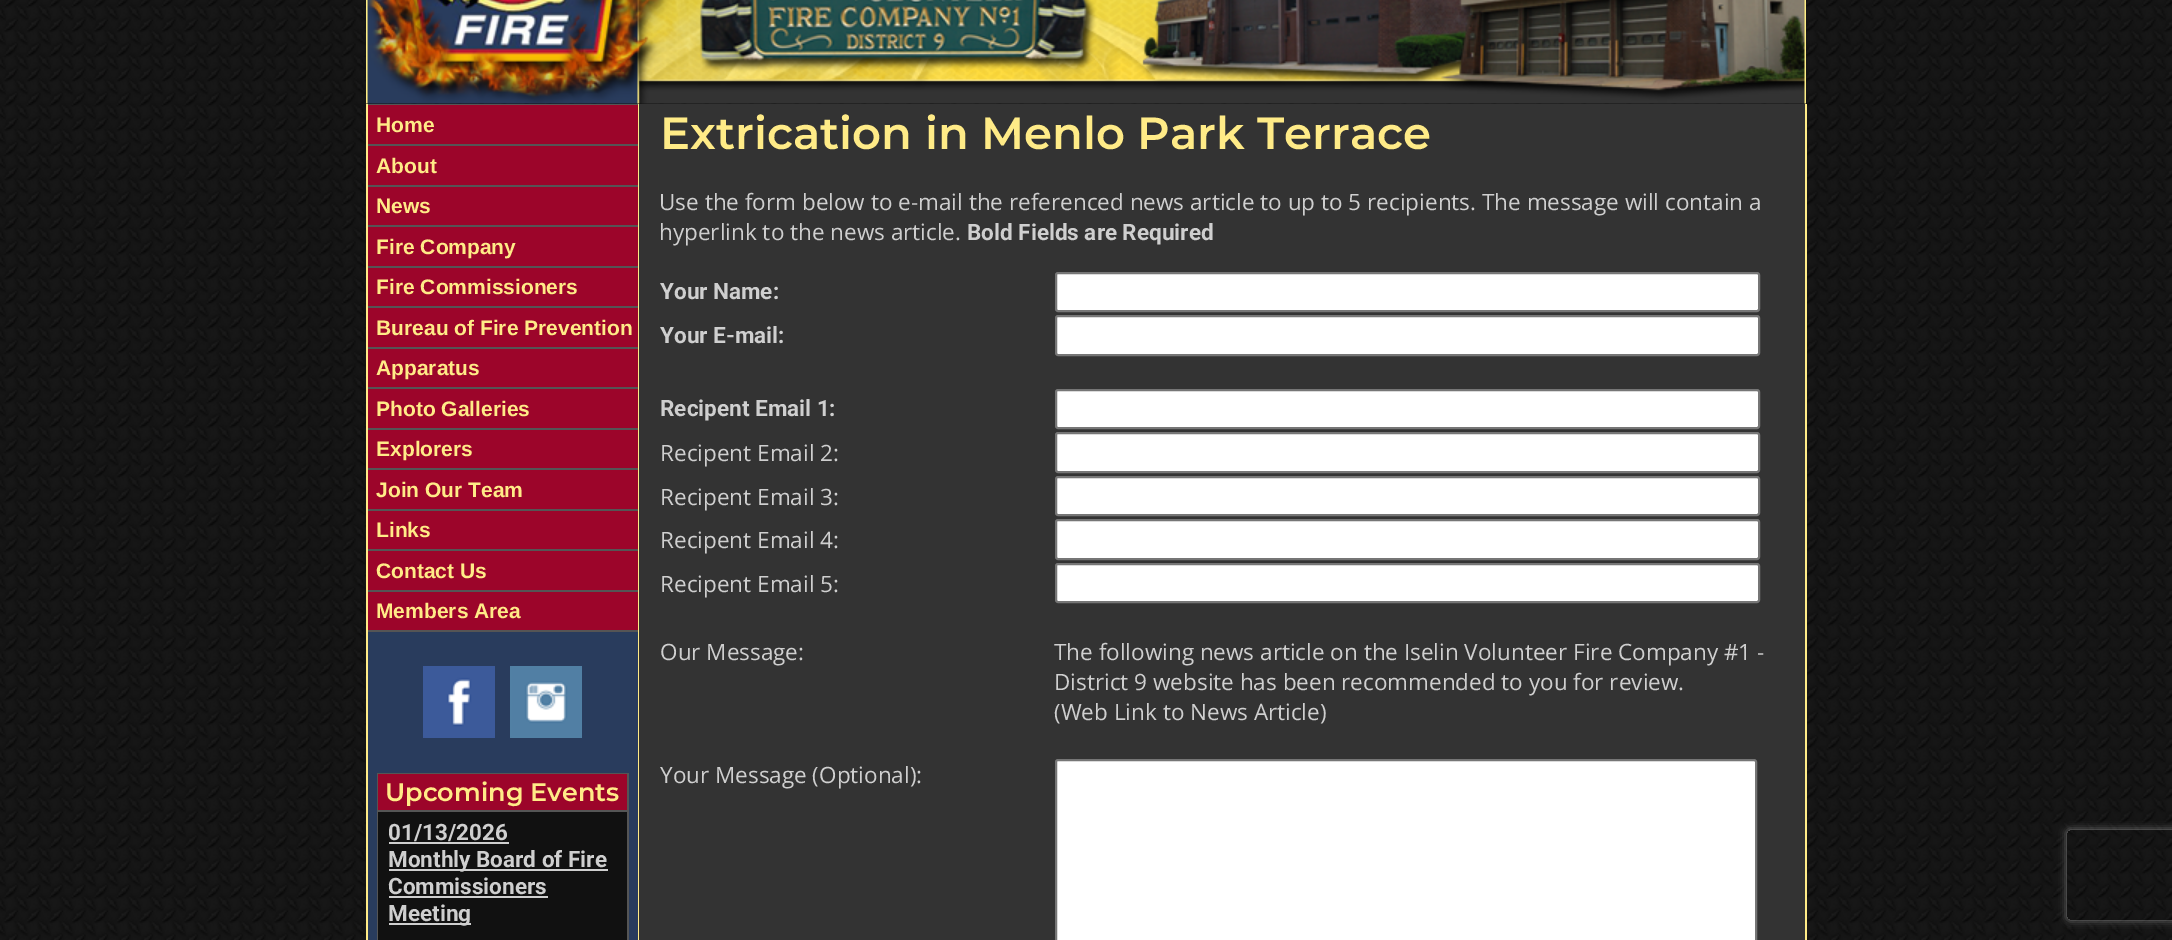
%!PS-Adobe-3.0
%%BoundingBox: 0 0 2172 940
%%LanguageLevel: 3
%%Pages: 1
%%EndComments
%%BeginProlog
/m { moveto } bind def
/l { lineto } bind def
/c { curveto } bind def
/h { closepath } bind def
/f { fill } bind def
/S { stroke } bind def
/q { gsave } bind def
/Q { grestore } bind def
/w { setlinewidth } bind def
/fn { [ exch dup neg 0 0 3 -1 roll 0 0 ] selectfont } def
/tx { moveto show } def
/bx { rectfill } def
/al { dup .setfillconstantalpha .setstrokeconstantalpha } def
/rr { 5 dict begin { /r /h /w /y /x } { exch def } forall
  x r add y moveto x w add y 2 copy h add r arct x w add y h add x 1 index r arct
  x y h add x y r arct x y 2 copy exch w add exch r arct closepath end } def
/sh { 12 dict begin { /a /b /q /h /w /y /x } { exch def } forall gsave /was 0 def
  9 -2 -9 { dup b mul 4 div /e exch def 1 sub .425 mul 2.718 exch exp 1 add a .99 .min exch div /now exch def
    1 1 now sub 1 was sub div sub al /was now def
    w h .min e 2 mul add 0 gt { x e sub y e sub w e 2 mul add h e 2 mul add
      q e add b .6 mul add w h .min 2 div e add .min 0 .max rr fill } if } for grestore end } def
/im { 5 dict begin { /h /w /y /x /name } { exch def } forall
  gsave x y translate w h scale
  w h 8 [w 0 0 h 0 0] name (r) file false 3 colorimage grestore end } def
%%EndProlog
%%BeginSetup
<< /PageSize [2172 940] /PageUsesTransparency true >> setpagedevice
%%EndSetup
%%Page: 1 1
0 .pushpdf14devicefilter
0 940 translate 1 -1 scale
4 setmiterlimit
1 setgray
0 0 2172 940 bx
(image0.raw) 0 0 2172 940 im
(image1.raw) 366 0 1440 104 im
1 0.922 0.529 setrgbcolor
366 104 2 836 bx
0.161 0.235 0.365 setrgbcolor
368 632 270 308 bx
0.333 setgray
368 104 270 1 bx
0.612 0.02 0.165 setrgbcolor
368 105 270 525 bx
/LiberationSans-Bold 21 fn
1 0.922 0.529 setrgbcolor
(Home) 376 132 tx
0.333 setgray
368 144 270 2 bx
1 0.922 0.529 setrgbcolor
(About) 376 173 tx
0.333 setgray
368 185 270 2 bx
1 0.922 0.529 setrgbcolor
(News) 376 213 tx
0.333 setgray
368 225 270 2 bx
1 0.922 0.529 setrgbcolor
(Fire Company) 376 254 tx
0.333 setgray
368 266 270 2 bx
1 0.922 0.529 setrgbcolor
(Fire Commissioners) 376 294 tx
0.333 setgray
368 306 270 2 bx
1 0.922 0.529 setrgbcolor
(Bureau of Fire Prevention) 376 335 tx
0.333 setgray
368 347 270 2 bx
1 0.922 0.529 setrgbcolor
(Apparatus) 376 375 tx
0.333 setgray
368 387 270 2 bx
1 0.922 0.529 setrgbcolor
(Photo Galleries) 376 416 tx
0.333 setgray
368 428 270 2 bx
1 0.922 0.529 setrgbcolor
(Explorers) 376 456 tx
0.333 setgray
368 468 270 2 bx
1 0.922 0.529 setrgbcolor
(Join Our Team) 376 497 tx
0.333 setgray
368 509 270 2 bx
1 0.922 0.529 setrgbcolor
(Links) 376 537 tx
0.333 setgray
368 549 270 2 bx
1 0.922 0.529 setrgbcolor
(Contact Us) 376 578 tx
0.333 setgray
368 590 270 2 bx
1 0.922 0.529 setrgbcolor
(Members Area) 376 618 tx
0.333 setgray
368 630 270 2 bx
(image2.raw) 423 666 72 72 im
(image3.raw) 510 666 72 72 im
377 773 252 167 bx
0.612 0.02 0.165 setrgbcolor
378 774 249 36 bx
/Montserrat-SemiBold 25.5 fn
1 0.922 0.529 setrgbcolor
(Upcoming Events) 385 801 tx
0.067 setgray
378 812 249 128 bx
/Roboto-Bold 22.5 fn
0.812 setgray
(01/13/2026) 388 840 tx
389 842 120 2 bx
389 869 219 2 bx
(Monthly Board of Fire) 388 867 tx
(Commissioners) 388 894 tx
389 896 159 2 bx
389 923 82 2 bx
(Meeting) 388 921 tx
1 0.922 0.529 setrgbcolor
638 104 1 836 bx
0.2 setgray
639 104 1166 836 bx
/Montserrat-SemiBold 45 fn
1 0.922 0.529 setrgbcolor
(Extrication in Menlo Park Terrace) 660 149 tx
/OpenSans-Regular 22.5 fn
0.812 setgray
(Use the form below to e-mail the referenced news article to up to 5 recipients. The message will contain a) 659 210 tx
(hyperlink to the news article.) 659 240 tx
/Roboto-Bold 22.5 fn
(Bold Fields are Required) 967 240 tx
(Your Name:) 660 299 tx
1 setgray
1056 273 703 38 2 rr q f Q
0.463 setgray
2 w
S
0.812 setgray
(Your E-mail:) 660 343 tx
1 setgray
1056 316 703 39 2 rr q f Q
0.463 setgray
S
0.812 setgray
(Recipent Email 1:) 660 416 tx
1 setgray
1056 390 703 38 2 rr q f Q
0.463 setgray
S
/OpenSans-Regular 22.5 fn
0.812 setgray
(Recipent Email 2:) 660 461 tx
1 setgray
1056 433 703 39 2 rr q f Q
0.463 setgray
S
0.812 setgray
(Recipent Email 3:) 660 505 tx
1 setgray
1056 477 703 38 2 rr q f Q
0.463 setgray
S
0.812 setgray
(Recipent Email 4:) 660 548 tx
1 setgray
1056 520 703 39 2 rr q f Q
0.463 setgray
S
0.812 setgray
(Recipent Email 5:) 660 592 tx
1 setgray
1056 564 703 38 2 rr q f Q
0.463 setgray
S
0.812 setgray
(Our Message:) 660 660 tx
(The following news article on the Iselin Volunteer Fire Company #1 -) 1054 660 tx
(District 9 website has been recommended to you for review.) 1054 690 tx
(\(Web Link to News Article\)) 1054 720 tx
(Your Message \(Optional\):) 660 783 tx
1 setgray
1056 760 700 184 2 rr q f Q
0.463 setgray
S
1 0.922 0.529 setrgbcolor
1805 104 2 836 bx
q
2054 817 m 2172 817 l 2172 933 l 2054 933 l h 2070 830 m 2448 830 l 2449.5 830 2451 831.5 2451 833 c 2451 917 l 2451 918.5 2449.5 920 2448 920 c 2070 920 l 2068.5 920 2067 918.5 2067 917 c 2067 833 l 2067 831.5 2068.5 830 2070 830 c h eoclip newpath
0.502 setgray
2067 830 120 90 3 4 1 sh
Q
.poppdf14devicefilter showpage
%%EOF
